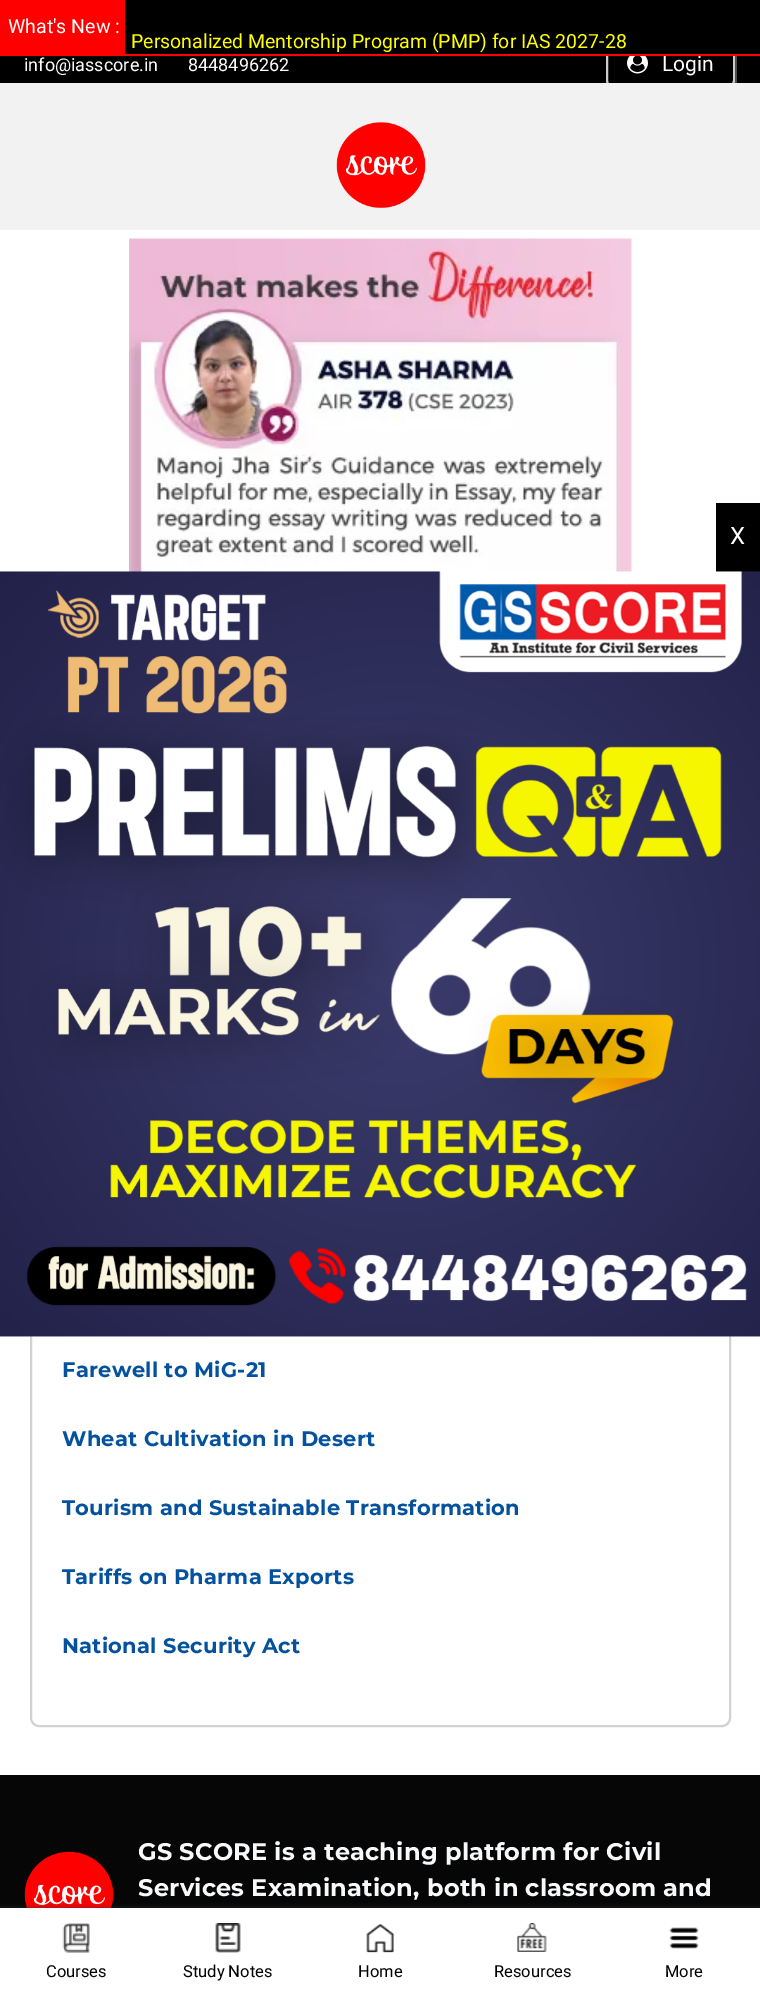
%!PS-Adobe-3.0
%%BoundingBox: 0 0 760 2006
%%LanguageLevel: 3
%%Pages: 1
%%EndComments
%%BeginProlog
/m { moveto } bind def
/S { stroke } bind def
/w { setlinewidth } bind def
/fn { [ exch dup neg 0 0 3 -1 roll 0 0 ] selectfont } def
/tx { moveto show } def
/bx { rectfill } def
/al { dup .setfillconstantalpha .setstrokeconstantalpha } def
/rr { 5 dict begin { /r /h /w /y /x } { exch def } forall
  x r add y moveto x w add y 2 copy h add r arct x w add y h add x 1 index r arct
  x y h add x y r arct x y 2 copy exch w add exch r arct closepath end } def
/sh { 12 dict begin { /a /b /q /h /w /y /x } { exch def } forall gsave /was 0 def
  9 -2 -9 { dup b mul 4 div /e exch def 1 sub .425 mul 2.718 exch exp 1 add a .99 .min exch div /now exch def
    1 1 now sub 1 was sub div sub al /was now def
    w h .min e 2 mul add 0 gt { x e sub y e sub w e 2 mul add h e 2 mul add
      q e add b .6 mul add w h .min 2 div e add .min 0 .max rr fill } if } for grestore end } def
/im { 5 dict begin { /h /w /y /x /name } { exch def } forall
  gsave x y translate w h scale
  w h 8 [w 0 0 h 0 0] name (r) file false 3 colorimage grestore end } def
%%EndProlog
%%BeginSetup
<< /PageSize [760 2006] /PageUsesTransparency true >> setpagedevice
%%EndSetup
%%Page: 1 1
0 .pushpdf14devicefilter
0 2006 translate 1 -1 scale
4 setmiterlimit
1 setgray
0 0 760 2006 bx
0 setgray
0 56 760 27 bx
0.8 setgray
2 w
607 40 127 48 8 rr S
0 setgray
125 0 635 54 bx
/Roboto-Regular 21 fn
1 setgray
(Login) 662 71 tx
1 0 0 setrgbcolor
0 54 760 2 bx
0 0 125 54 bx
/Roboto-Regular 19.5 fn
1 setgray
(What's New :) 8 33 tx
1 1 0 setrgbcolor
(Personalized Mentorship Program \(PMP\) for IAS 2027-28) 131 48 tx
/Roboto-Regular 18 fn
1 setgray
(info@iasscore.in) 24 71 tx
(8448496262) 188 71 tx
0.302 setgray
735 56 2 27 bx
(image0.raw) 627 56 21 18 im
0.949 setgray
0 83 760 147 bx
(image1.raw) 336 122 90 86 im
0 setgray
716 503 44 69 bx
/Roboto-Regular 24 fn
1 setgray
(X) 730 544 tx
(image3.raw) 129 238 503 334 im
0.824 setgray
31 1171 699 555 8 rr S
(image2.raw) 0 571 760 766 im
/Montserrat-Bold 21 fn
0.016 0.322 0.616 setrgbcolor
62 1377 m 0.25 0 (Farewell to MiG-21) ashow
62 1446 m 0.25 0 (Wheat Cultivation in Desert) ashow
62 1515 m 0.25 0 (Tourism and Sustainable Transformation) ashow
62 1584 m 0.25 0 (Tariffs on Pharma Exports) ashow
62 1653 m 0.25 0 (National Security Act) ashow
0.024 setgray
0 1775 760 133 bx
(image4.raw) 24 1851 90 57 im
/Montserrat-Bold 24 fn
0.973 0.976 0.98 setrgbcolor
138 1860 m 0.25 0 (GS SCORE is a teaching platform for Civil) ashow
138 1896 m 0.25 0 (Services Examination, both in classroom and) ashow
0.196 setgray
0 1907 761 99 0 2 0.5 sh
1 setgray
0 1908 760 98 bx
(image5.raw) 62 1923 28 30 im
/Roboto-Regular 16.5 fn
0 setgray
(Courses) 46 1977 tx
(image6.raw) 215 1923 26 30 im
(Study Notes) 183 1977 tx
(image7.raw) 366 1924 28 29 im
(Home) 358 1977 tx
(image8.raw) 517 1923 30 29 im
(Resources) 494 1977 tx
(image9.raw) 669 1927 30 22 im
(More) 665 1977 tx
.poppdf14devicefilter showpage
%%EOF
